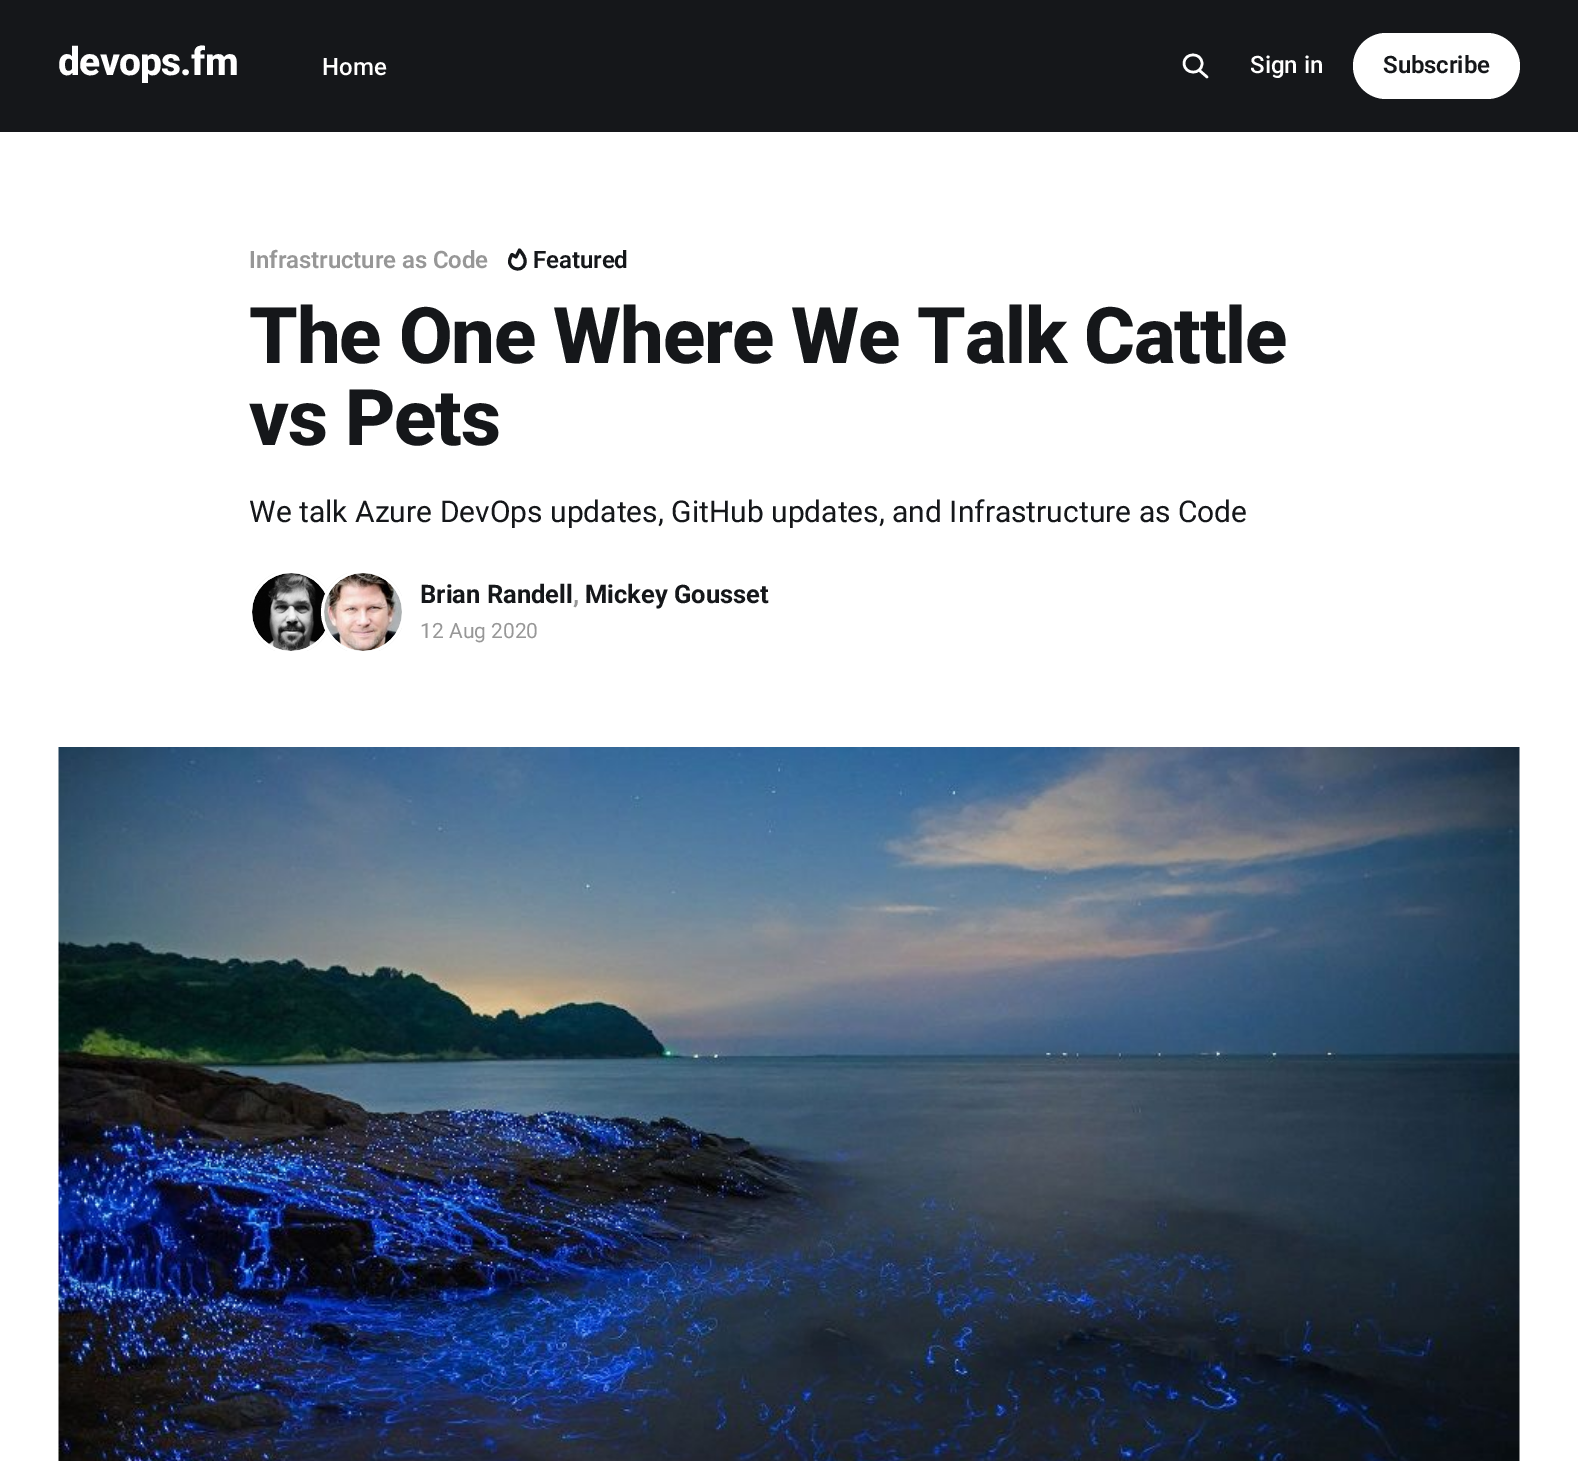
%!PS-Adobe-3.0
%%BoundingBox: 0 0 1578 1461
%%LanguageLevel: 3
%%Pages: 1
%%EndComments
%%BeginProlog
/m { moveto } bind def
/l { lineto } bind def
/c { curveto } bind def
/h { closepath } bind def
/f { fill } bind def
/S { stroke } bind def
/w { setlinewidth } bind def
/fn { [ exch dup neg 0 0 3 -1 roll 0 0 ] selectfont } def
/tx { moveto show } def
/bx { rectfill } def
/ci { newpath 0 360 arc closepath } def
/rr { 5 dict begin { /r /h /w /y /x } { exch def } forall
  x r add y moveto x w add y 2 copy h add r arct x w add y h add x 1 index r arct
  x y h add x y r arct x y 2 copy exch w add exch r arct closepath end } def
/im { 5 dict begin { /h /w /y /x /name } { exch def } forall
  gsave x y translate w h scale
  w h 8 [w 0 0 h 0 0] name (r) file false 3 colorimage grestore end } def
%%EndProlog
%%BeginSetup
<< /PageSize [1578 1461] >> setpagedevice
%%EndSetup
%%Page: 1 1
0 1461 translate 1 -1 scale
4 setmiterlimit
1 setgray
0 0 1578 1461 bx
0.082 0.09 0.102 setrgbcolor
0 0 1578 132 bx
/Roboto-ExtraBold 39 fn
1 setgray
58 75 m -0.75 0 (devops.fm) ashow
/Roboto-Medium 24 fn
(Home) 322 75 tx
2.5 w
1 setlinecap
1 setlinejoin
1207 77 m 1199 70 l 1202 63.5 m 1202 75 1184.5 75 1184 63.5 c 1184 52 1202 52 1202 63.5 c h S
(Sign in) 1250 73 tx
1353 33 167 66 33 rr f
/Roboto-SemiBold 24 fn
0.082 0.09 0.102 setrgbcolor
1383 73 m -0.1 0 (Subscribe) ashow
0.592 setgray
249 268 m -0.1 0 (Infrastructure as Code) ashow
0.082 0.09 0.102 setrgbcolor
3 w
512 254.5 m 502.5 268.5 523 274.5 525 263 c 526 258 522.5 253.5 519.5 250 c 516 257 l h S
533 268 m -0.1 0 (Featured) ashow
/Roboto-ExtraBold 78 fn
249 363 m -1.2 0 (The One Where We Talk Cattle) ashow
249 445 m -1.2 0 (vs Pets) ashow
/Roboto-Regular 30 fn
(We talk Azure DevOps updates, GitHub updates, and Infrastructure as Code) 249 522 tx
(image0.raw) 252 573 75 78 im
1 setgray
0 setlinecap
0 setlinejoin
363 612 40.5 ci S
363 612 39 ci f
(image1.raw) 324 573 78 78 im
/Roboto-Bold 25.5 fn
0.082 0.09 0.102 setrgbcolor
(Brian Randell) 420 603 tx
0.592 setgray
(,) 573 603 tx
0.082 0.09 0.102 setrgbcolor
(Mickey Gousset) 585 603 tx
/Roboto-Regular 21 fn
0.592 setgray
(12 Aug 2020) 420 638 tx
(image2.raw) 58 747 1462 714 im
showpage
%%EOF
